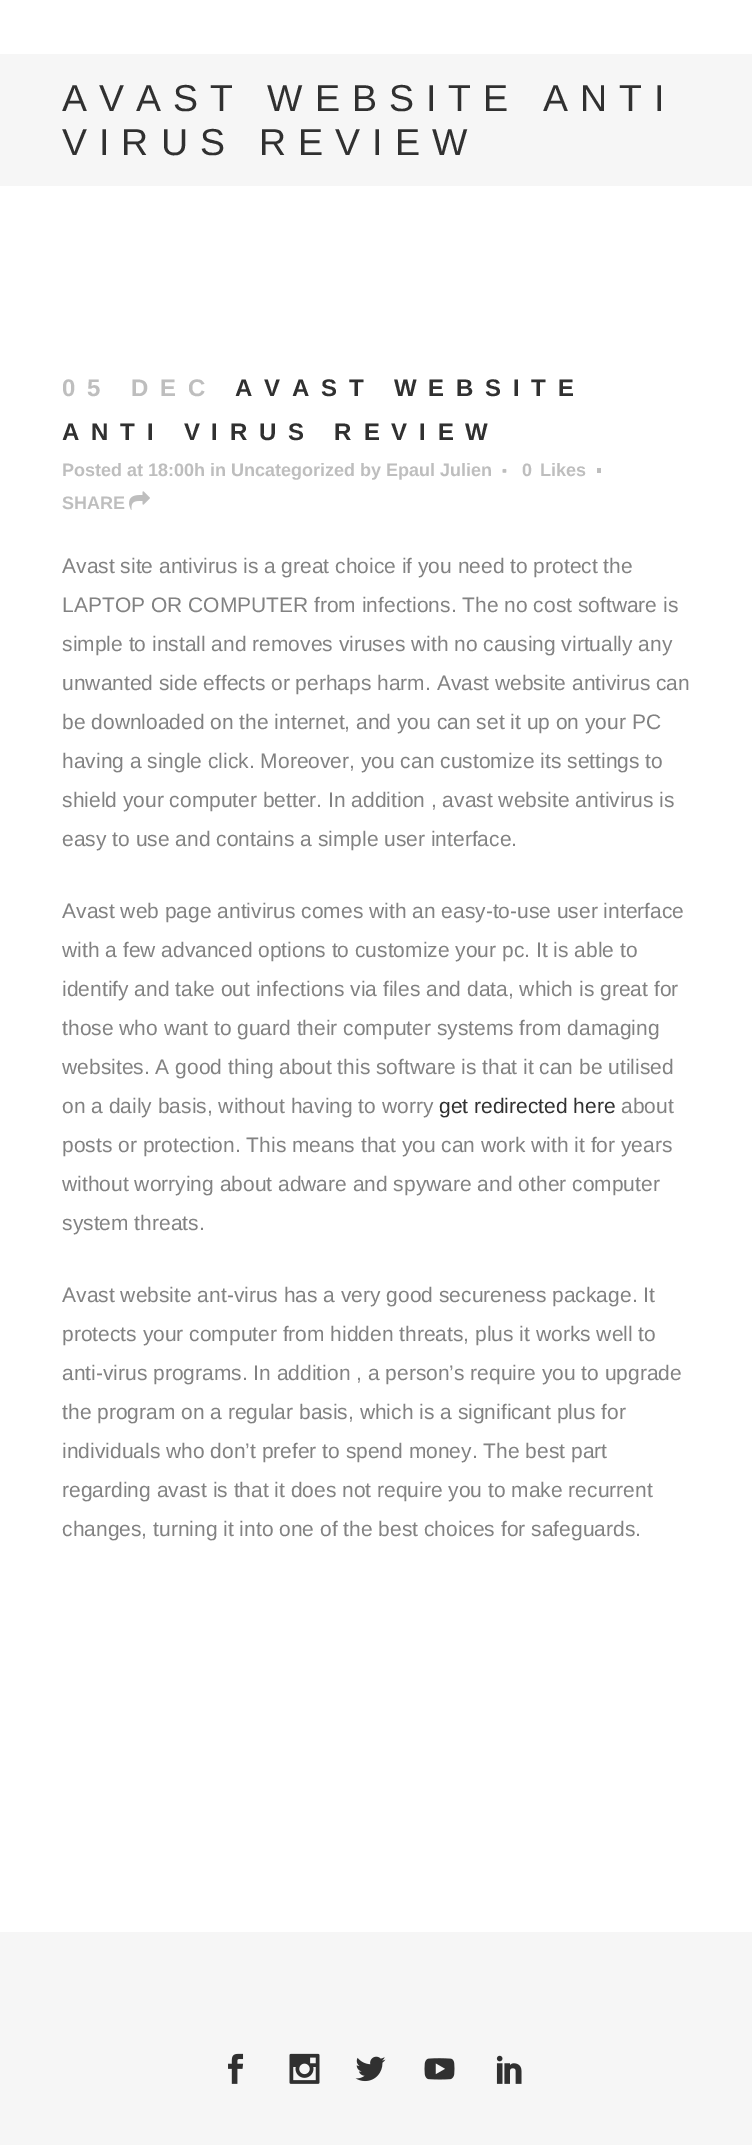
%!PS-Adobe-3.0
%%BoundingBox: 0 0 752 2145
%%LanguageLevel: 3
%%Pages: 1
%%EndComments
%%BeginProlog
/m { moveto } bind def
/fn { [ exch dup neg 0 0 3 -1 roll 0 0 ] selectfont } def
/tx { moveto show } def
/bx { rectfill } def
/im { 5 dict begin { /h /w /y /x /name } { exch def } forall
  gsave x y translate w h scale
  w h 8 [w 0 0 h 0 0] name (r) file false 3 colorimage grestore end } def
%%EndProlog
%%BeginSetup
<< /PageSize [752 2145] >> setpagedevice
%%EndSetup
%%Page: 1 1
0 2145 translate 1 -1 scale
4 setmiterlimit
1 setgray
0 0 752 2145 bx
0.965 setgray
0 54 752 132 bx
/Arimo-Regular 37.5 fn
0.188 setgray
62 111 m 12 0 (AVAST WEBSITE ANTI) ashow
62 155 m 12 0 (VIRUS REVIEW) ashow
/Arimo-Bold 24 fn
0.745 setgray
62 396 m 11.8 0 (05 DEC) ashow
0.188 setgray
235 396 m 11.8 0 (AVAST WEBSITE) ashow
62 440 m 11.8 0 (ANTI VIRUS REVIEW) ashow
/Arimo-Bold 18 fn
0.745 setgray
(Posted at 18:00h in Uncategorized by Epaul Julien) 62 476 tx
(image0.raw) 502 468 5 5 im
(0) 522 476 tx
(Likes) 540 476 tx
597 468 4 5 bx
/LiberationSans-Bold 18 fn
(SHARE) 62 509 tx
(image1.raw) 129 491 21 19 im
/Arimo-Regular 21 fn
0.51 setgray
(Avast site antivirus is a great choice if you need to protect the) 62 573 tx
(LAPTOP OR COMPUTER from infections. The no cost software is) 62 612 tx
(simple to install and removes viruses with no causing virtually any) 62 651 tx
(unwanted side effects or perhaps harm. Avast website antivirus can) 62 690 tx
(be downloaded on the internet, and you can set it up on your PC) 62 729 tx
(having a single click. Moreover, you can customize its settings to) 62 768 tx
(shield your computer better. In addition , avast website antivirus is) 62 807 tx
(easy to use and contains a simple user interface.) 62 846 tx
(Avast web page antivirus comes with an easy-to-use user interface) 62 918 tx
(with a few advanced options to customize your pc. It is able to) 62 957 tx
(identify and take out infections via files and data, which is great for) 62 996 tx
(those who want to guard their computer systems from damaging) 62 1035 tx
(websites. A good thing about this software is that it can be utilised) 62 1074 tx
(on a daily basis, without having to worry) 62 1113 tx
0.188 setgray
(get redirected here) 439 1113 tx
0.51 setgray
(about) 621 1113 tx
(posts or protection. This means that you can work with it for years) 62 1152 tx
(without worrying about adware and spyware and other computer) 62 1191 tx
(system threats.) 62 1230 tx
(Avast website ant-virus has a very good secureness package. It) 62 1302 tx
(protects your computer from hidden threats, plus it works well to) 62 1341 tx
(anti-virus programs. In addition , a person’s require you to upgrade) 62 1380 tx
(the program on a regular basis, which is a significant plus for) 62 1419 tx
(individuals who don’t prefer to spend money. The best part) 62 1458 tx
(regarding avast is that it does not require you to make recurrent) 62 1497 tx
(changes, turning it into one of the best choices for safeguards.) 62 1536 tx
0.965 setgray
0 1932 752 213 bx
(image2.raw) 228 2053 16 31 im
(image3.raw) 289 2053 31 31 im
(image4.raw) 355 2056 31 26 im
(image5.raw) 424 2058 31 22 im
(image6.raw) 496 2055 26 29 im
showpage
%%EOF
